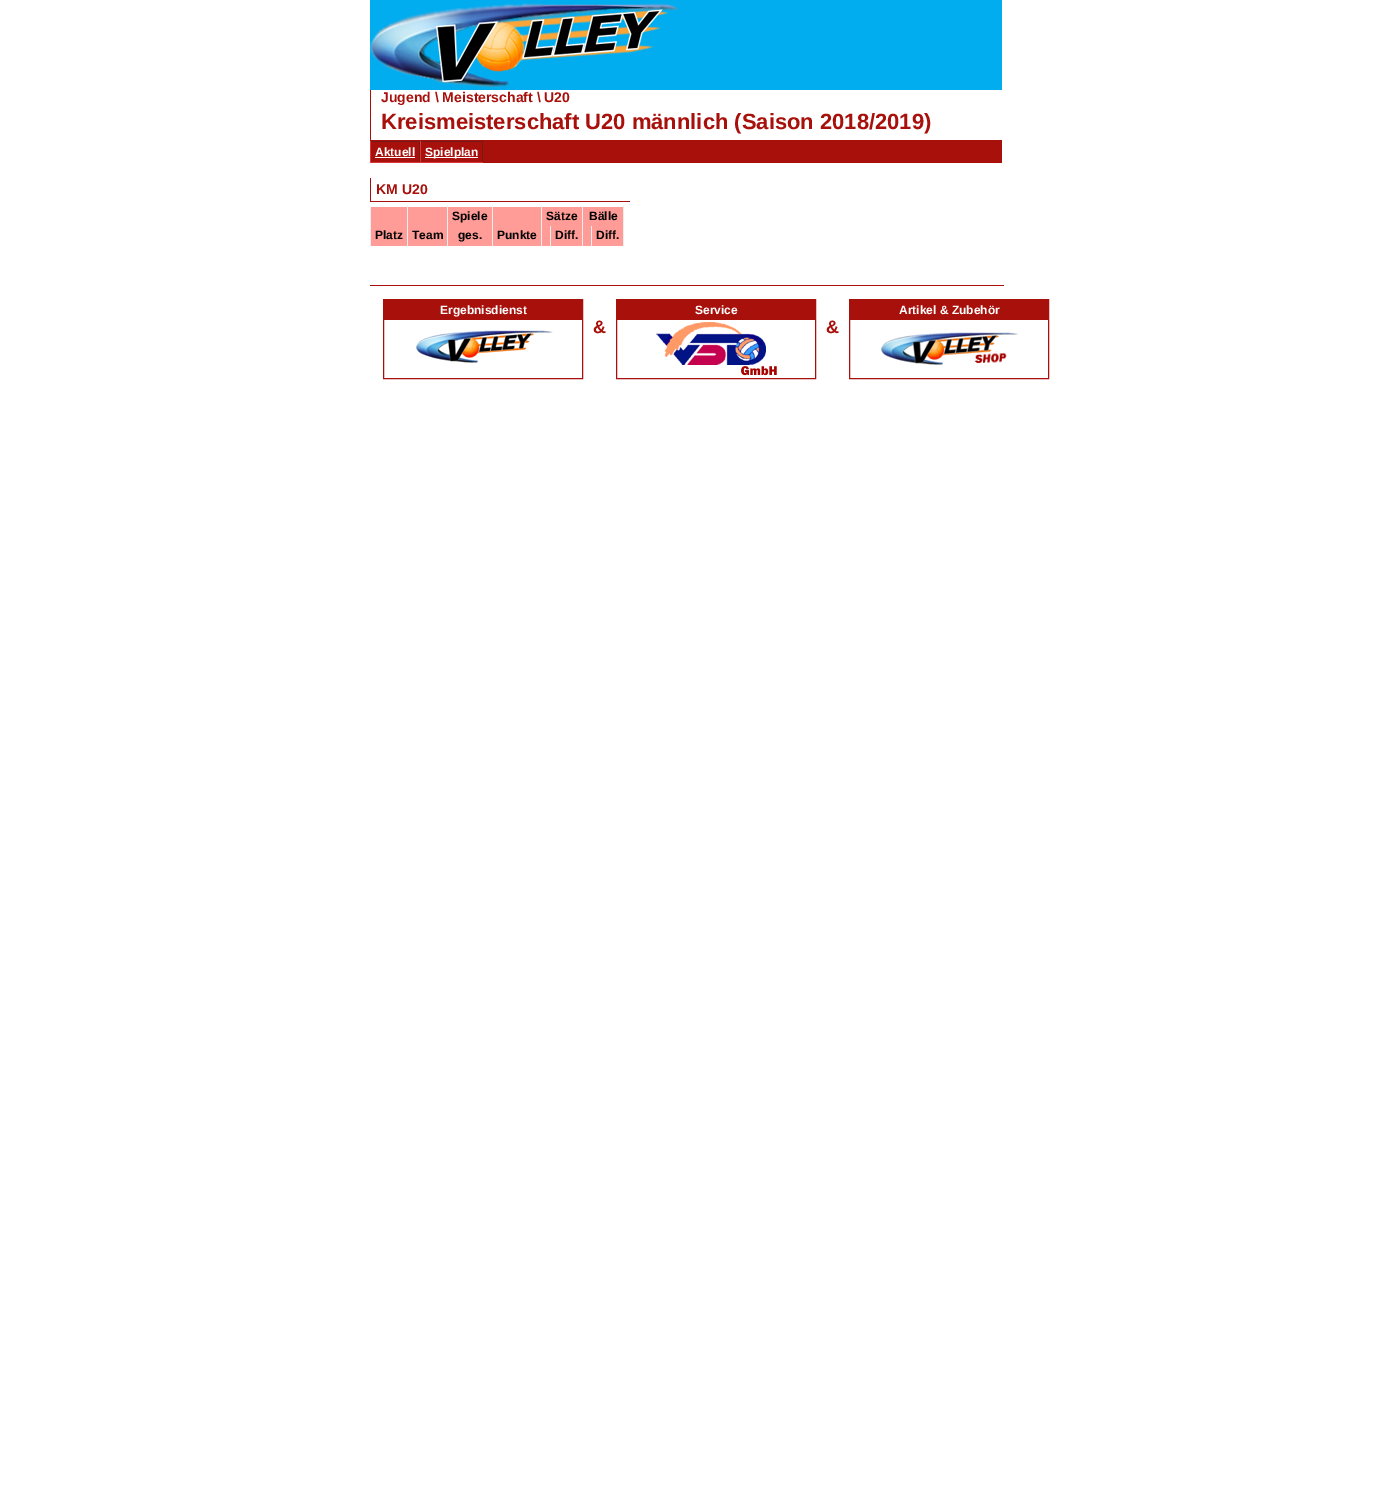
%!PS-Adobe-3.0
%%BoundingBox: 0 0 1374 1494
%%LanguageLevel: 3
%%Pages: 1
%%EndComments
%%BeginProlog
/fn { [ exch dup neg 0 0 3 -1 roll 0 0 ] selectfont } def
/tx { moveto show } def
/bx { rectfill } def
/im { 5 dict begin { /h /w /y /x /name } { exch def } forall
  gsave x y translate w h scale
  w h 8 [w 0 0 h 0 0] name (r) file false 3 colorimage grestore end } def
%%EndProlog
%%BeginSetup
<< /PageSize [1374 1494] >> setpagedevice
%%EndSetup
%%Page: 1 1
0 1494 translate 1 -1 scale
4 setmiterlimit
1 setgray
0 0 1374 1494 bx
0.004 0.678 0.937 setrgbcolor
370 0 632 90 bx
(image0.raw) 370 3 309 84 im
0.655 0.063 0.043 setrgbcolor
370 140 632 1 bx
370 90 1 51 bx
/LiberationSans-Bold 14 fn
(Jugend \\ Meisterschaft \\ U20) 381 102 tx
/LiberationSans-Bold 22 fn
(Kreismeisterschaft U20 männlich \(Saison 2018/2019\)) 381 129 tx
371 141 631 22 bx
0.443 0.11 0.098 setrgbcolor
370 141 113 1 bx
419 141 1 22 bx
0.863 0.22 0.231 setrgbcolor
370 162 50 1 bx
370 141 1 22 bx
/LiberationSans-Bold 12 fn
1 setgray
(Aktuell) 375 156 tx
375 157 40 1 bx
0.443 0.11 0.098 setrgbcolor
482 141 1 22 bx
0.863 0.22 0.231 setrgbcolor
420 162 63 1 bx
420 141 1 22 bx
1 setgray
425 157 53 1 bx
(Spielplan) 425 156 tx
0.655 0.063 0.043 setrgbcolor
370 201 260 1 bx
370 178 1 24 bx
/LiberationSans-Bold 14 fn
(KM U20) 376 194 tx
1 0.612 0.592 setrgbcolor
371 207 36 39 bx
408 207 39 39 bx
448 207 44 39 bx
/LiberationSans-Bold 12 fn
0 setgray
(Spiele) 452 220 tx
1 0.612 0.592 setrgbcolor
493 207 48 39 bx
542 207 40 19 bx
0 setgray
(Sätze) 546 220 tx
1 0.612 0.592 setrgbcolor
583 207 40 19 bx
0 setgray
(Bälle) 589 220 tx
0.933 setgray
370 206 1 40 bx
0 setgray
(Platz) 375 239 tx
0.933 setgray
407 206 1 40 bx
0 setgray
(Team) 412 239 tx
0.933 setgray
447 206 1 40 bx
0 setgray
(ges.) 458 239 tx
0.933 setgray
492 206 1 40 bx
0 setgray
(Punkte) 497 239 tx
1 0.612 0.592 setrgbcolor
542 226 8 20 bx
0.933 setgray
541 206 1 40 bx
1 0.612 0.592 setrgbcolor
551 226 31 20 bx
0.933 setgray
550 226 1 20 bx
0 setgray
(Diff.) 555 239 tx
1 0.612 0.592 setrgbcolor
583 226 8 20 bx
0.933 setgray
582 206 1 40 bx
1 0.612 0.592 setrgbcolor
592 226 31 20 bx
0.933 setgray
623 206 1 40 bx
591 226 1 20 bx
0 setgray
(Diff.) 596 239 tx
0.655 0.063 0.043 setrgbcolor
370 285 634 1 bx
383.5 299.5 199 79 rectstroke
384 300 198 20 bx
1 setgray
(Ergebnisdienst) 440 314 tx
(image1.raw) 416 330 137 33 im
0.655 0.063 0.043 setrgbcolor
616.5 299.5 199 79 rectstroke
617 300 198 20 bx
1 setgray
(Service) 695 314 tx
(image2.raw) 656 322 121 54 im
0.655 0.063 0.043 setrgbcolor
849.5 299.5 199 79 rectstroke
850 300 198 20 bx
1 setgray
(Artikel & Zubehör) 899 314 tx
(image3.raw) 881 332 137 33 im
/LiberationSans-Bold 18 fn
0.655 0.063 0.043 setrgbcolor
(&) 593 333 tx
(&) 826 333 tx
showpage
%%EOF
